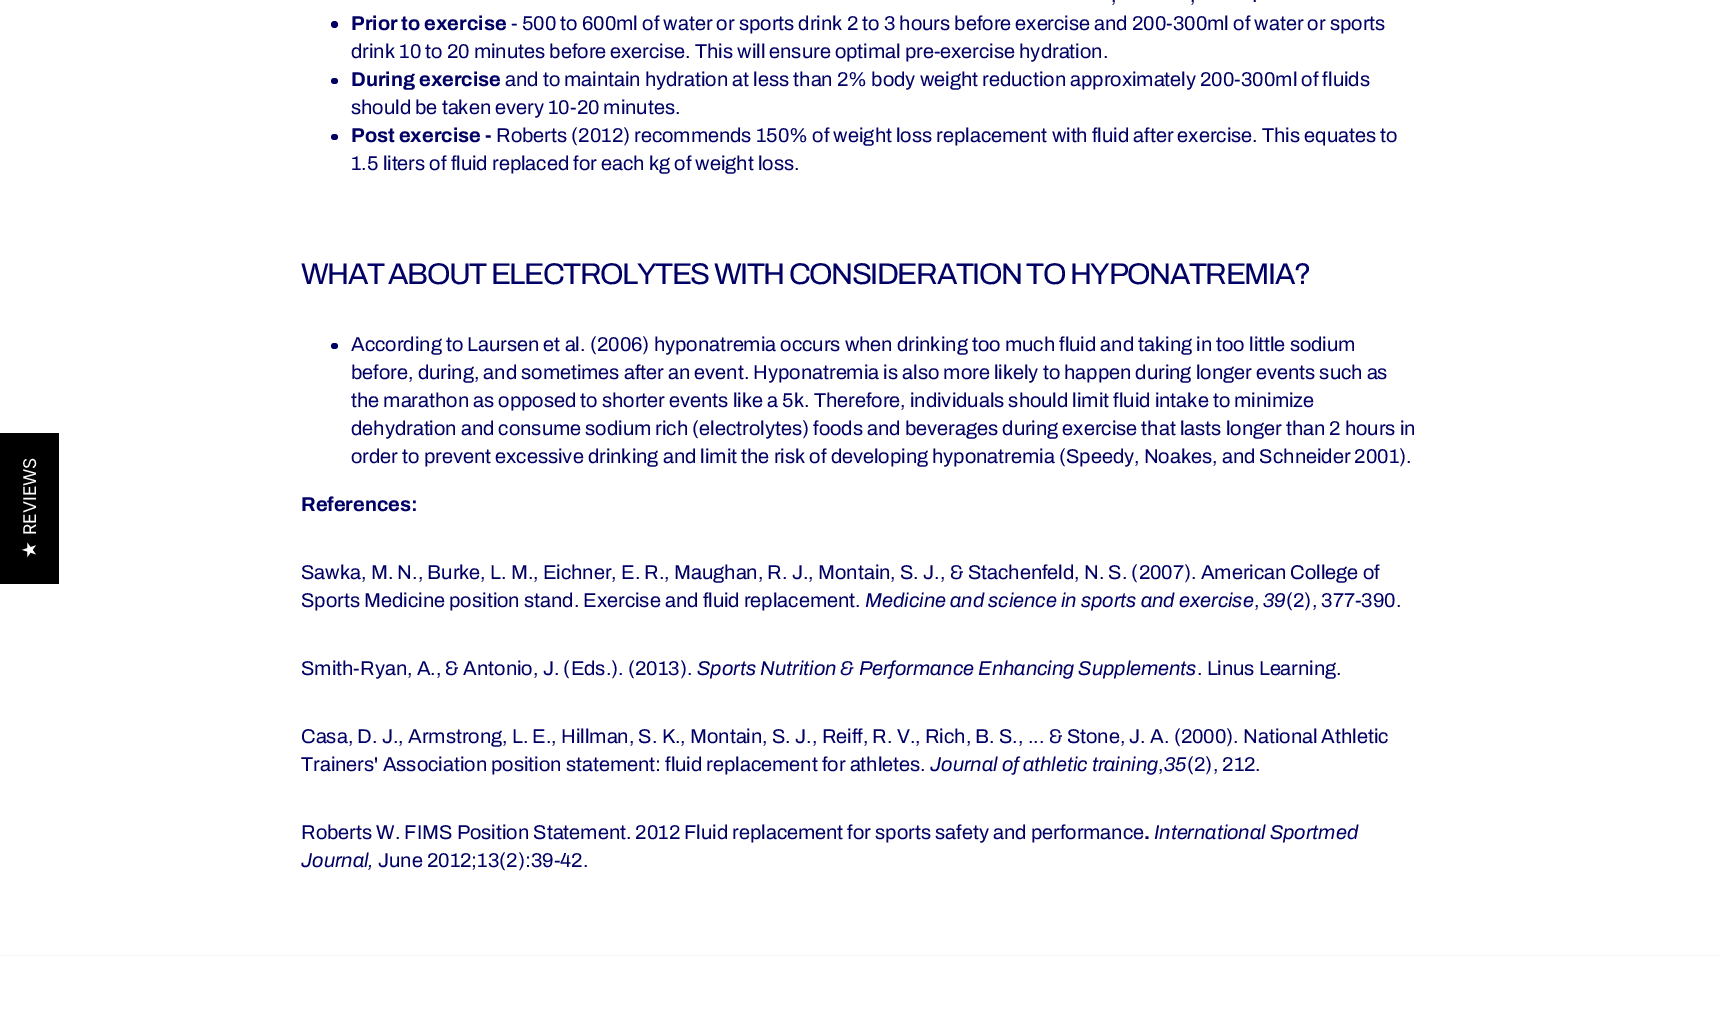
%!PS-Adobe-3.0
%%BoundingBox: 0 0 1720 1016
%%LanguageLevel: 3
%%Pages: 1
%%EndComments
%%BeginProlog
/m { moveto } bind def
/f { fill } bind def
/q { gsave } bind def
/Q { grestore } bind def
/fn { [ exch dup neg 0 0 3 -1 roll 0 0 ] selectfont } def
/tx { moveto show } def
/bx { rectfill } def
/ci { newpath 0 360 arc closepath } def
/rr { 5 dict begin { /r /h /w /y /x } { exch def } forall
  x r add y moveto x w add y 2 copy h add r arct x w add y h add x 1 index r arct
  x y h add x y r arct x y 2 copy exch w add exch r arct closepath end } def
%%EndProlog
%%BeginSetup
<< /PageSize [1720 1016] >> setpagedevice
%%EndSetup
%%Page: 1 1
0 1016 translate 1 -1 scale
4 setmiterlimit
1 setgray
0 0 1720 1016 bx
0 setgray
0 433 59 151 bx
/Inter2-Regular 17.5 fn
0.996 setgray
q 36 535 translate -90 rotate 0 0 m (REVIEWS) show Q
/Inter-Regular 17.5 fn
q 36 559 translate -90 rotate 0 0 m (★) show Q
0.965 0.965 0.976 setrgbcolor
0 955 1720 1 bx
/Archivo-Regular 20 fn
0 0 0.396 setrgbcolor
(,) 1111 2 tx
(,) 1190 2 tx
(.) 1252 2 tx
334.5 24.5 3.5 ci f
/Archivo-Bold 20 fn
(Prior to exercise) 351 30 tx
/Archivo-Regular 20 fn
(- 500 to 600ml of water or sports drink 2 to 3 hours before exercise and 200-300ml of water or sports) 511 30 tx
(drink 10 to 20 minutes before exercise. This will ensure optimal pre-exercise hydration.) 351 58 tx
331 78 7 6 3 rr f
/Archivo-Bold 20 fn
(During exercise) 351 86 tx
/Archivo-Regular 20 fn
(and to maintain hydration at less than 2% body weight reduction approximately 200-300ml of fluids) 505 86 tx
(should be taken every 10-20 minutes.) 351 114 tx
331 134 7 6 3 rr f
/Archivo-Bold 20 fn
(Post exercise -) 351 142 tx
/Archivo-Regular 20 fn
(Roberts \(2012\) recommends 150% of weight loss replacement with fluid after exercise. This equates to) 496 142 tx
(1.5 liters of fluid replaced for each kg of weight loss.) 351 170 tx
/Archivo-Regular 30 fn
301 284 m -1.5 0 (WHAT ABOUT ELECTROLYTES WITH CONSIDERATION TO HYPONATREMIA?) ashow
331 343 7 6 3 rr f
/Archivo-Regular 20 fn
(According to Laursen et al. \(2006\) hyponatremia occurs when drinking too much fluid and taking in too little sodium) 351 351 tx
(before, during, and sometimes after an event. Hyponatremia is also more likely to happen during longer events such as) 351 379 tx
(the marathon as opposed to shorter events like a 5k. Therefore, individuals should limit fluid intake to minimize) 351 407 tx
(dehydration and consume sodium rich \(electrolytes\) foods and beverages during exercise that lasts longer than 2 hours in) 351 435 tx
(order to prevent excessive drinking and limit the risk of developing hyponatremia \(Speedy, Noakes, and Schneider 2001\).) 351 463 tx
/Archivo-Bold 20 fn
(References:) 301 511 tx
/Archivo-Regular 20 fn
(Sawka, M. N., Burke, L. M., Eichner, E. R., Maughan, R. J., Montain, S. J., & Stachenfeld, N. S. \(2007\). American College of) 301 579 tx
(Sports Medicine position stand. Exercise and fluid replacement.) 301 607 tx
/Archivo-Italic 20 fn
(Medicine and science in sports and exercise) 865 607 tx
/Archivo-Regular 20 fn
(,) 1254 607 tx
/Archivo-Italic 20 fn
(39) 1263 607 tx
/Archivo-Regular 20 fn
(\(2\), 377-390.) 1286 607 tx
(Smith-Ryan, A., & Antonio, J. \(Eds.\). \(2013\).) 301 675 tx
/Archivo-Italic 20 fn
(Sports Nutrition & Performance Enhancing Supplements) 697 675 tx
/Archivo-Regular 20 fn
(. Linus Learning.) 1197 675 tx
(Casa, D. J., Armstrong, L. E., Hillman, S. K., Montain, S. J., Reiff, R. V., Rich, B. S., ... & Stone, J. A. \(2000\). National Athletic) 301 743 tx
(Trainers' Association position statement: fluid replacement for athletes.) 301 771 tx
/Archivo-Italic 20 fn
(Journal of athletic training) 930 771 tx
/Archivo-Regular 20 fn
(,) 1158 771 tx
/Archivo-Italic 20 fn
(35) 1164 771 tx
/Archivo-Regular 20 fn
(\(2\), 212.) 1187 771 tx
(Roberts W. FIMS Position Statement. 2012 Fluid replacement for sports safety and performance) 301 839 tx
/Archivo-Bold 20 fn
(.) 1144 839 tx
/Archivo-Italic 20 fn
(International Sportmed) 1154 839 tx
(Journal,) 301 867 tx
/Archivo-Regular 20 fn
(June 2012;13\(2\):39-42.) 378 867 tx
showpage
%%EOF
